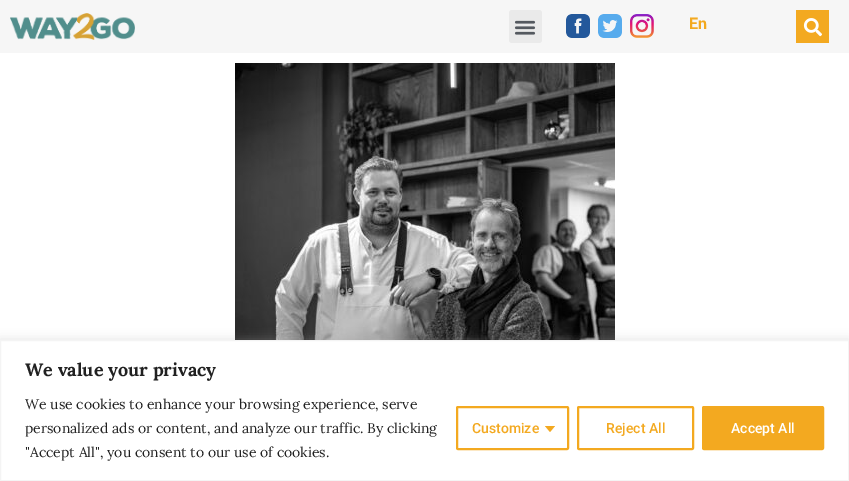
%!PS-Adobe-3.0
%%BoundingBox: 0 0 849 481
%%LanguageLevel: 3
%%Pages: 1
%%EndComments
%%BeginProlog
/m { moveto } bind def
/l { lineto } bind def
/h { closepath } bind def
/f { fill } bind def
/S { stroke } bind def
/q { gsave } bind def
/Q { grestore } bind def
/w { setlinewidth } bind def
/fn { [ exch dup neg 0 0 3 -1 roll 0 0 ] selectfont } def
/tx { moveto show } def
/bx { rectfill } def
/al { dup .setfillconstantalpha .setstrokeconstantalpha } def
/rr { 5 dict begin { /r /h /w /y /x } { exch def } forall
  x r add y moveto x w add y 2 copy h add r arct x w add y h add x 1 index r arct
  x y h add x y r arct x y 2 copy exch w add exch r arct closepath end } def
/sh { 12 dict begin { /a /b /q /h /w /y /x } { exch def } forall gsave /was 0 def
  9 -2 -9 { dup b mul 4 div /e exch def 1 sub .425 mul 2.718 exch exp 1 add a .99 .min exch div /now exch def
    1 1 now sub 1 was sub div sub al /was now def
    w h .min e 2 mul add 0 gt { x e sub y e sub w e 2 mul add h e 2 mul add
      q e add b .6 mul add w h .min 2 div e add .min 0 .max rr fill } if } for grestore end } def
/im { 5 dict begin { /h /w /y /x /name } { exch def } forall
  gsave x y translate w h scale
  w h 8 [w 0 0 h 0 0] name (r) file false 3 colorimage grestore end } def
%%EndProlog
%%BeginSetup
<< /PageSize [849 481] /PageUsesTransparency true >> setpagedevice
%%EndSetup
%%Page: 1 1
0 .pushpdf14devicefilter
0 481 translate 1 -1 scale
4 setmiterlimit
1 setgray
0 0 849 481 bx
0.965 setgray
0 0 849 53 bx
(image0.raw) 10 13 125 27 im
0.918 setgray
509 10 33 33 3 rr f
(image1.raw) 514 20 22 15 im
(image2.raw) 566 14 24 24 im
(image3.raw) 598 14 24 24 im
(image4.raw) 630 14 24 24 im
/Roboto-Bold 16 fn
0.953 0.663 0.125 setrgbcolor
(En) 689 29 tx
796 10 33 33 bx
(image5.raw) 803 18 19 19 im
(image6.raw) 235 63 380 277 im
0.675 0.671 0.671 setrgbcolor
0 339 849 141 0 5 0.3 sh
1 setgray
0.5 340.5 m 848.5 340.5 l 848.5 480.5 l 0.5 480.5 l h q f Q
0.957 setgray
S
/Lora-Bold 18 fn
0.129 setgray
(We value your privacy) 25 376 tx
/Lora-Regular 14 fn
(We use cookies to enhance your browsing experience, serve) 25 409 tx
(personalized ads or content, and analyze our traffic. By clicking) 25 433 tx
("Accept All", you consent to our use of cookies.) 25 457 tx
0.953 0.663 0.125 setrgbcolor
2 w
457 407 111 42 1 rr S
/Roboto-Medium 14 fn
(Customize) 472 433 tx
545 426 m 555 426 l 550 432 l h f
578 407 115 42 1 rr S
(Reject All) 606 433 tx
703 407 120 42 1 rr q f Q
S
1 setgray
(Accept All) 731 433 tx
.poppdf14devicefilter showpage
%%EOF
